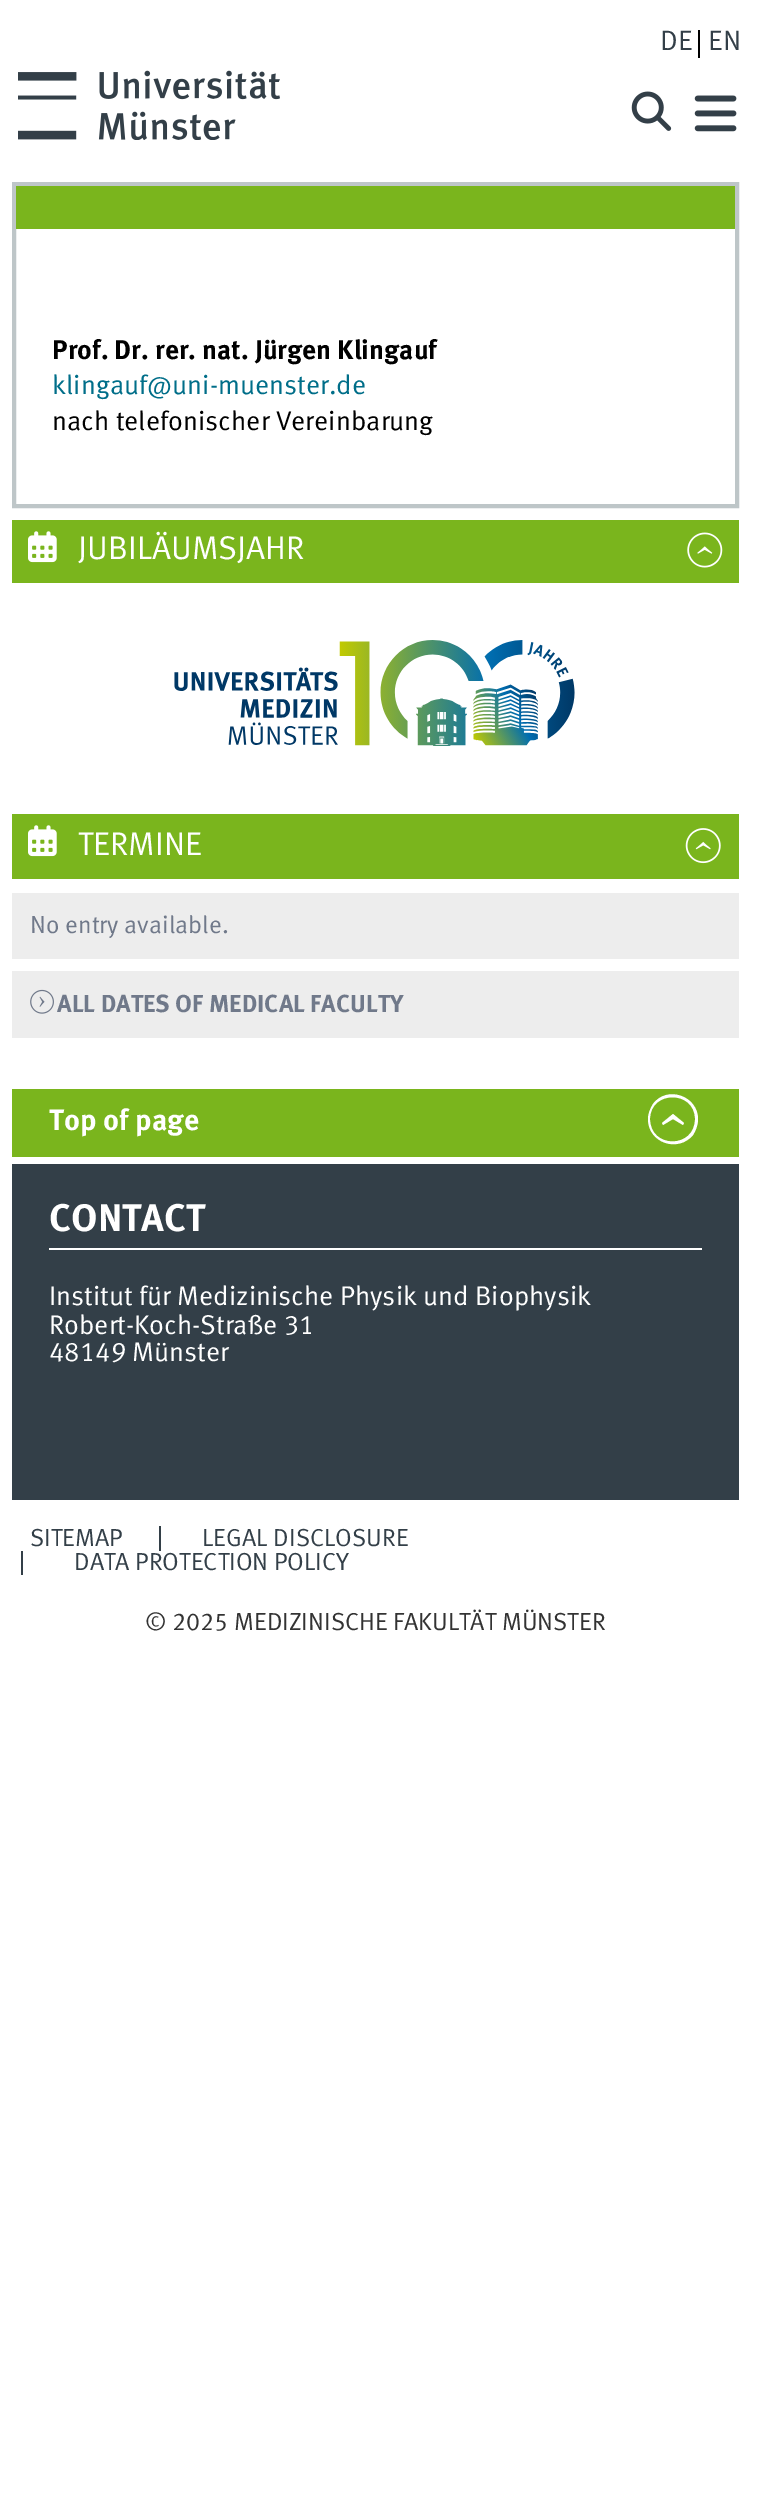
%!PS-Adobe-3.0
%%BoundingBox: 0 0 757 2515
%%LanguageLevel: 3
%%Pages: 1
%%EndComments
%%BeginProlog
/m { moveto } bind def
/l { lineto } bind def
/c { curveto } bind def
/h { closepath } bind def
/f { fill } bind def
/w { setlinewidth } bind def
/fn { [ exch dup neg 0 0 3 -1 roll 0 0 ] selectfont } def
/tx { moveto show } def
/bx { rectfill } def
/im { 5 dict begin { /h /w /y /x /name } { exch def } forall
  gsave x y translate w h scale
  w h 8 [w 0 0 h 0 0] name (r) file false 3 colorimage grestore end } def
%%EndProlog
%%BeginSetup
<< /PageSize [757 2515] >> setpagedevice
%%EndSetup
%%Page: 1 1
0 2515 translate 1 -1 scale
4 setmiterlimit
1 setgray
0 0 757 2515 bx
/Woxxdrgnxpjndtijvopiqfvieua-Regular 28 fn
0.2 0.247 0.282 setrgbcolor
(DE) 660 50 tx
0 setgray
698 30 2 28 bx
0.2 0.247 0.282 setrgbcolor
(EN) 708 50 tx
(image0.raw) 631 91 41 40 im
(image1.raw) 694 95 43 37 im
(image2.raw) 18 70 262 70 im
0.745 0.776 0.784 setrgbcolor
4 w
14 184 723 322 rectstroke
0.478 0.71 0.114 setrgbcolor
16 186 719 43 bx
/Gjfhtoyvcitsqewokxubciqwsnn-Bold 27.1 fn
0 setgray
(Prof. Dr. rer. nat. Jürgen Klingauf) 52 359 tx
/Woxxdrgnxpjndtijvopiqfvieua-Regular 27.1 fn
0 0.431 0.537 setrgbcolor
(klingauf@uni-muenster.de) 52 394 tx
0 setgray
(nach telefonischer Vereinbarung) 52 430 tx
0.478 0.71 0.114 setrgbcolor
12 520 727 63 bx
(image3.raw) 28 531 29 32 im
/Woxxdrgnxpjndtijvopiqfvieua-Regular 32.75 fn
1 setgray
(JUBILÄUMSJAHR) 78 559 tx
(image4.raw) 687 532 36 36 im
(image5.raw) 174 640 401 106 im
0.478 0.71 0.114 setrgbcolor
12 814 727 65 bx
(image3.raw) 28 825 29 32 im
1 setgray
(TERMINE) 78 855 tx
(image6.raw) 685 828 36 36 im
0.929 setgray
12 893 727 66 bx
/Woxxdrgnxpjndtijvopiqfvieua-Regular 24.6 fn
0.439 0.475 0.541 setrgbcolor
(No entry available.) 30 933 tx
0.929 setgray
12 971 727 67 bx
(image7.raw) 30 989 24 25 im
/Gjfhtoyvcitsqewokxubciqwsnn-Bold 24.6 fn
0.439 0.475 0.541 setrgbcolor
(ALL DATES OF MEDICAL FACULTY) 57 1012 tx
0.478 0.71 0.114 setrgbcolor
12 1089 727 68 bx
/Gjfhtoyvcitsqewokxubciqwsnn-Bold 29.5 fn
1 setgray
(Top of page) 49 1130 tx
648 1119 m 648 1114 650 1109 653 1104 c 667 1085 698 1096 698 1119 c 698 1125 696 1130 693 1135 c 678 1153 648 1143 648 1119 c h 650 1119 m 650 1149 695 1149 695 1119 c 695 1090 650 1090 650 1119 c h 662 1123 m 673 1114 l 684 1123 l 683 1125 l 673 1119 l 663 1125 l h f
0.2 0.247 0.282 setrgbcolor
12 1164 727 336 bx
1 setgray
49 1248 653 2 bx
/Gjfhtoyvcitsqewokxubciqwsnn-Bold 38.5 fn
(CONTACT) 49 1231 tx
/Woxxdrgnxpjndtijvopiqfvieua-Regular 27.1 fn
(Institut für Medizinische Physik und Biophysik) 49 1305 tx
(Robert-Koch-Straße 31) 49 1334 tx
(48149 Münster) 49 1361 tx
/Woxxdrgnxpjndtijvopiqfvieua-Regular 24.6 fn
0.2 0.247 0.282 setrgbcolor
(SITEMAP) 30 1546 tx
159 1526 2 25 bx
(LEGAL DISCLOSURE) 202 1546 tx
21 1551 2 24 bx
(DATA PROTECTION POLICY) 74 1570 tx
0.2 setgray
(© 2025 MEDIZINISCHE FAKULTÄT MÜNSTER) 145 1630 tx
showpage
%%EOF
